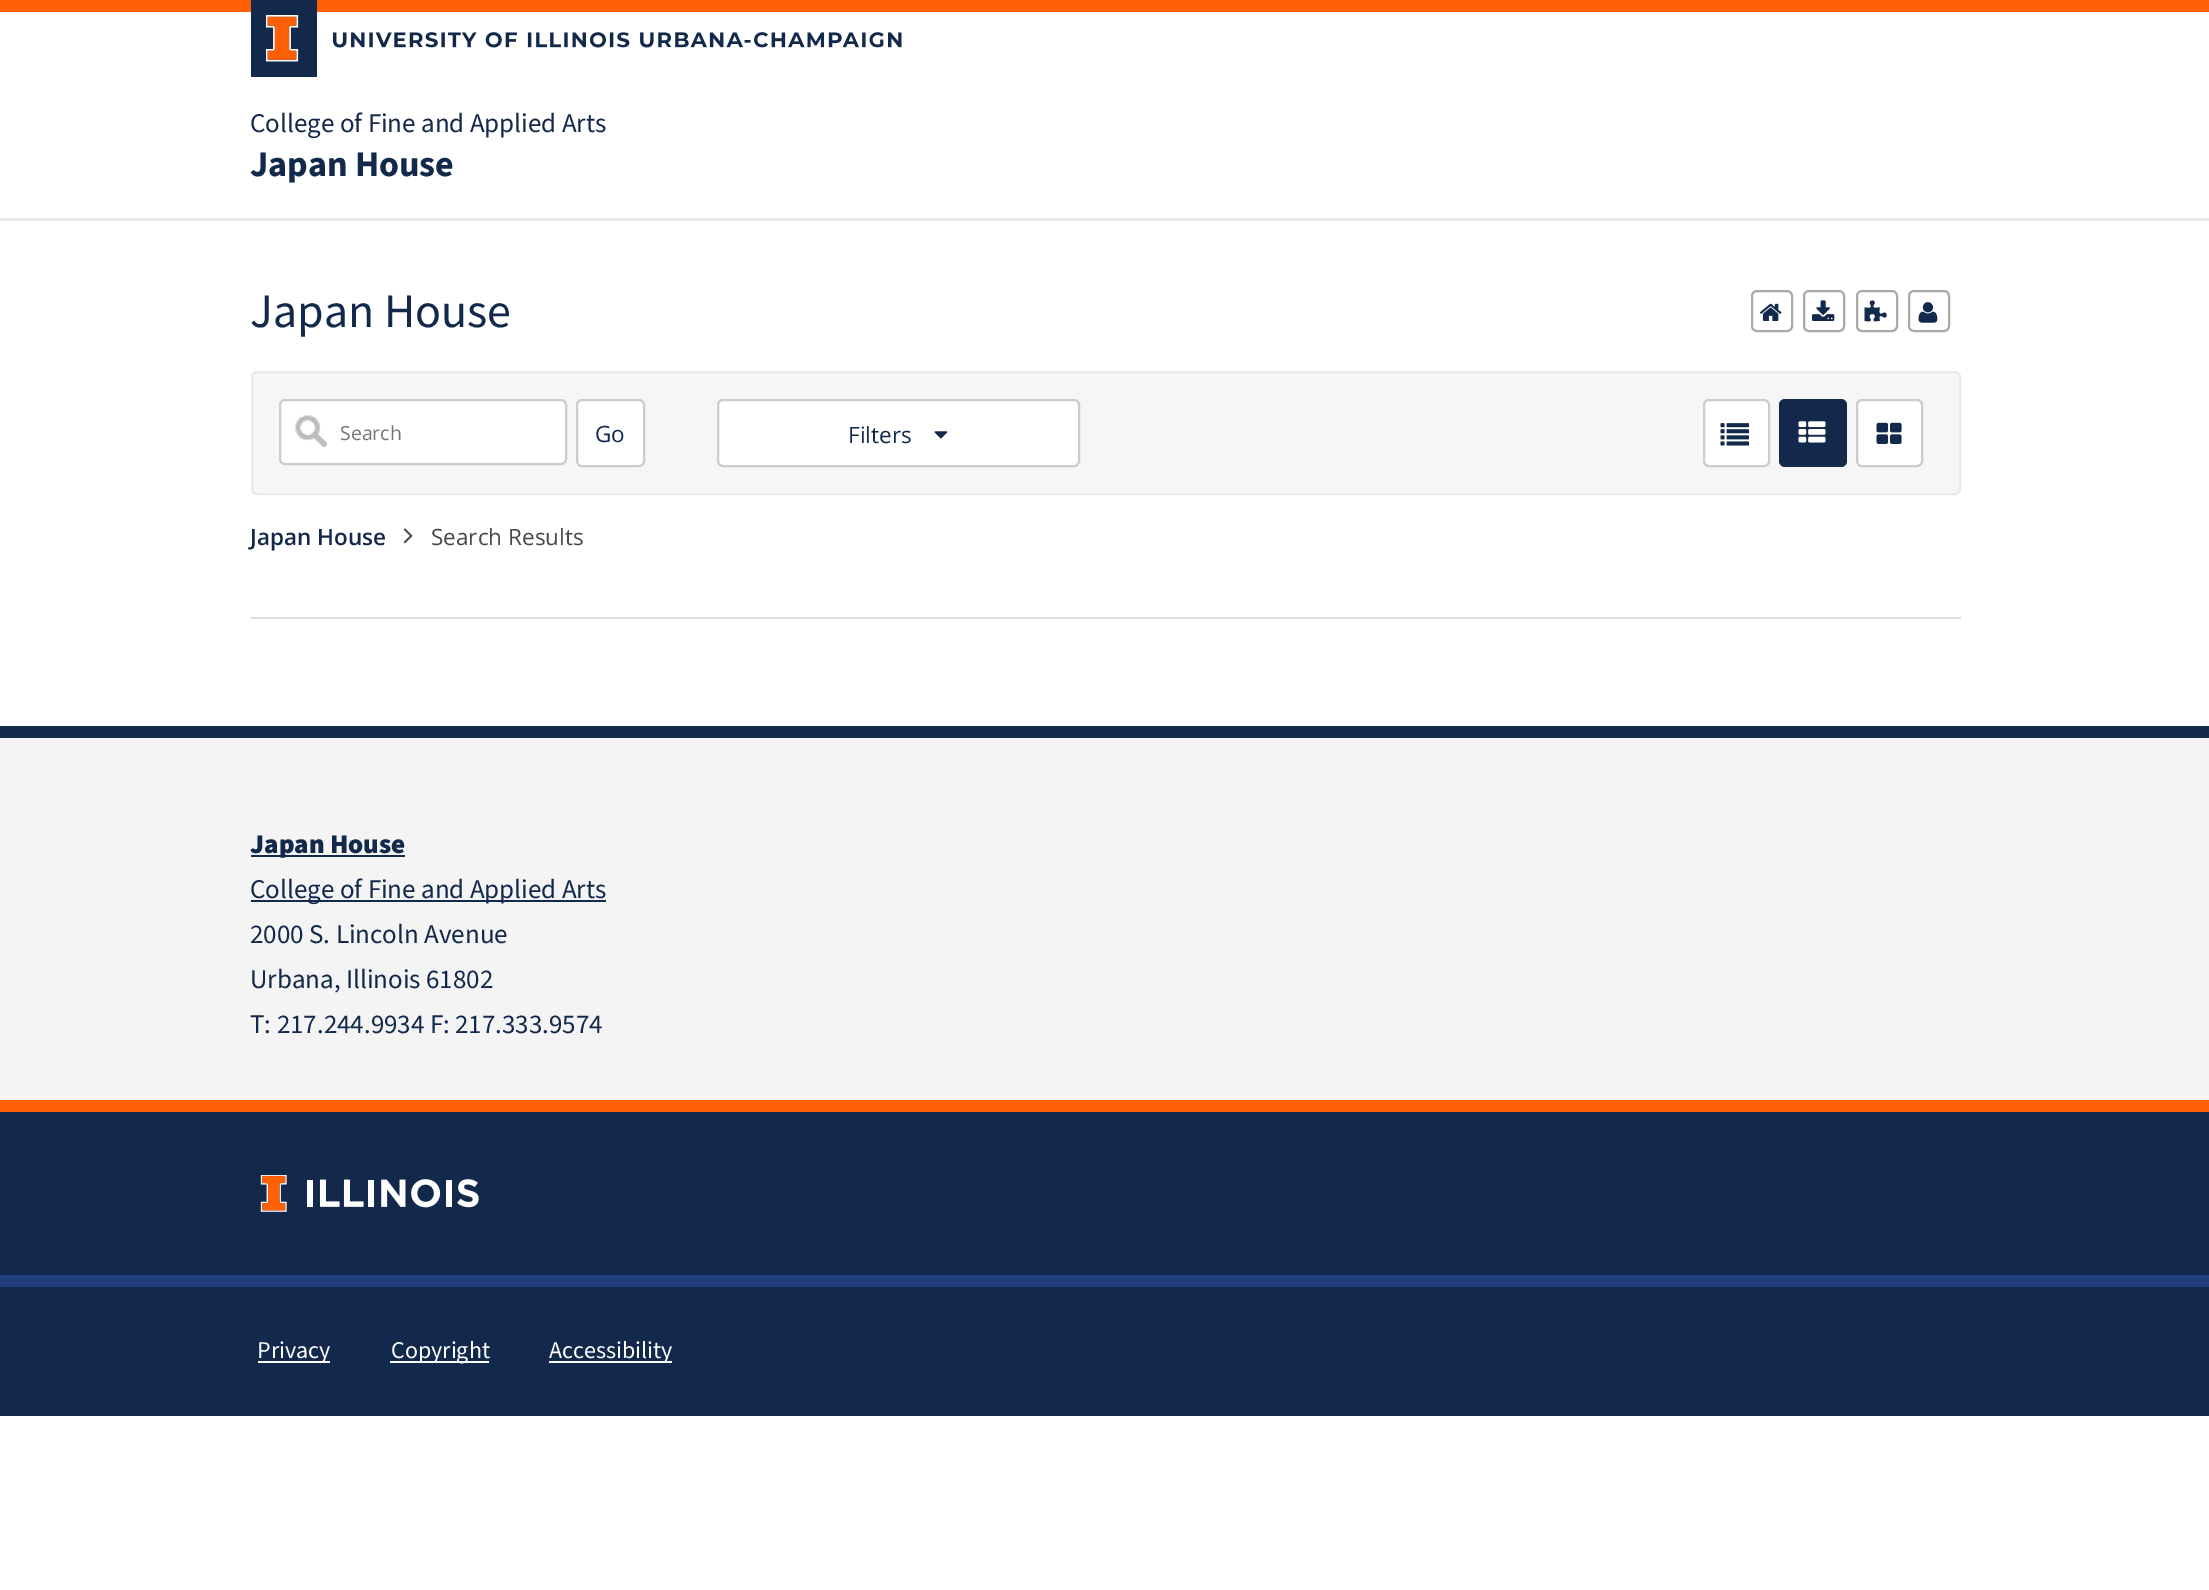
%!PS-Adobe-3.0
%%BoundingBox: 0 0 2209 1590
%%LanguageLevel: 3
%%Pages: 1
%%EndComments
%%BeginProlog
/f { fill } bind def
/S { stroke } bind def
/q { gsave } bind def
/Q { grestore } bind def
/w { setlinewidth } bind def
/fn { [ exch dup neg 0 0 3 -1 roll 0 0 ] selectfont } def
/tx { moveto show } def
/bx { rectfill } def
/rr { 5 dict begin { /r /h /w /y /x } { exch def } forall
  x r add y moveto x w add y 2 copy h add r arct x w add y h add x 1 index r arct
  x y h add x y r arct x y 2 copy exch w add exch r arct closepath end } def
/im { 5 dict begin { /h /w /y /x /name } { exch def } forall
  gsave x y translate w h scale
  w h 8 [w 0 0 h 0 0] name (r) file false 3 colorimage grestore end } def
%%EndProlog
%%BeginSetup
<< /PageSize [2209 1590] >> setpagedevice
%%EndSetup
%%Page: 1 1
0 1590 translate 1 -1 scale
4 setmiterlimit
1 setgray
0 0 2209 1590 bx
0.91 0.914 0.922 setrgbcolor
0 218 2209 3 bx
1 0.373 0.02 setrgbcolor
0 0 2209 12 bx
0.075 0.161 0.294 setrgbcolor
251 0 66 77 bx
(image0.raw) 266 15 33 47 im
(image1.raw) 333 32 569 16 im
/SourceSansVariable-Regular 27 fn
(College of Fine and Applied Arts) 250 132 tx
/SourceSansVariable-Bold 36 fn
(Japan House) 250 176 tx
/SourceSansPro-Regular 48 fn
(Japan House) 250 327 tx
0.667 setgray
2 w
1752 291 40 40 5 rr S
(image2.raw) 1759 303 23 18 im
1804 291 40 40 5 rr S
(image3.raw) 1812 300 23 21 im
1857 291 40 40 5 rr S
(image4.raw) 1864 300 23 22 im
1909 291 40 40 5 rr S
(image5.raw) 1918 302 20 21 im
0.965 setgray
252 372 1708 122 5 rr q f Q
0.914 setgray
S
1 setgray
279 399 288 66 6 rr f
(image6.raw) 295 415 32 32 im
0.8 setgray
280 400 286 64 5 rr S
/OpenSans-Regular 19.5 fn
0.459 setgray
(Search) 340 440 tx
1 setgray
577 400 67 66 5 rr q f Q
0.8 setgray
S
/OpenSans-Regular 22.5 fn
0.075 0.161 0.294 setrgbcolor
(Go) 595 442 tx
1 setgray
718 400 361 66 5 rr q f Q
0.8 setgray
S
0.075 0.161 0.294 setrgbcolor
(Filters) 848 443 tx
(image7.raw) 934 431 14 8 im
1 setgray
1704 400 65 66 5 rr q f Q
0.8 setgray
S
(image8.raw) 1720 423 29 23 im
0.075 0.161 0.294 setrgbcolor
1779 399 68 68 6 rr f
(image9.raw) 1798 421 28 22 im
1 setgray
1857 400 65 66 5 rr q f Q
0.8 setgray
S
(image10.raw) 1876 422 26 22 im
/OpenSans-SemiBold 22.5 fn
0.075 0.161 0.294 setrgbcolor
(Japan House) 250 545 tx
(image11.raw) 403 528 10 16 im
/OpenSans-Regular 22.5 fn
0.282 0.282 0.29 setrgbcolor
(Search Results) 431 545 tx
0.867 setgray
251 617 1710 2 bx
0.957 setgray
0 738 2209 362 bx
0.075 0.161 0.294 setrgbcolor
0 726 2209 12 bx
251 855 154 2 bx
/SourceSansVariable-Black 27 fn
(Japan House) 250 853 tx
251 900 355 2 bx
/SourceSansVariable-Regular 27 fn
(College of Fine and Applied Arts) 250 898 tx
(2000 S. Lincoln Avenue) 250 943 tx
(Urbana, Illinois 61802) 250 988 tx
(T: 217.244.9934 F: 217.333.9574) 250 1033 tx
0 1112 2209 163 bx
1 0.373 0.02 setrgbcolor
0 1100 2209 12 bx
(image12.raw) 260 1175 219 37 im
0.075 0.161 0.294 setrgbcolor
0 1287 2209 129 bx
0.122 0.239 0.482 setrgbcolor
0 1275 2209 12 bx
1 setgray
258 1361 72 2 bx
/SourceSansVariable-Regular 24 fn
(Privacy) 257 1358 tx
390 1361 99 2 bx
(Copyright) 391 1358 tx
549 1361 123 2 bx
(Accessibility) 549 1358 tx
showpage
%%EOF
